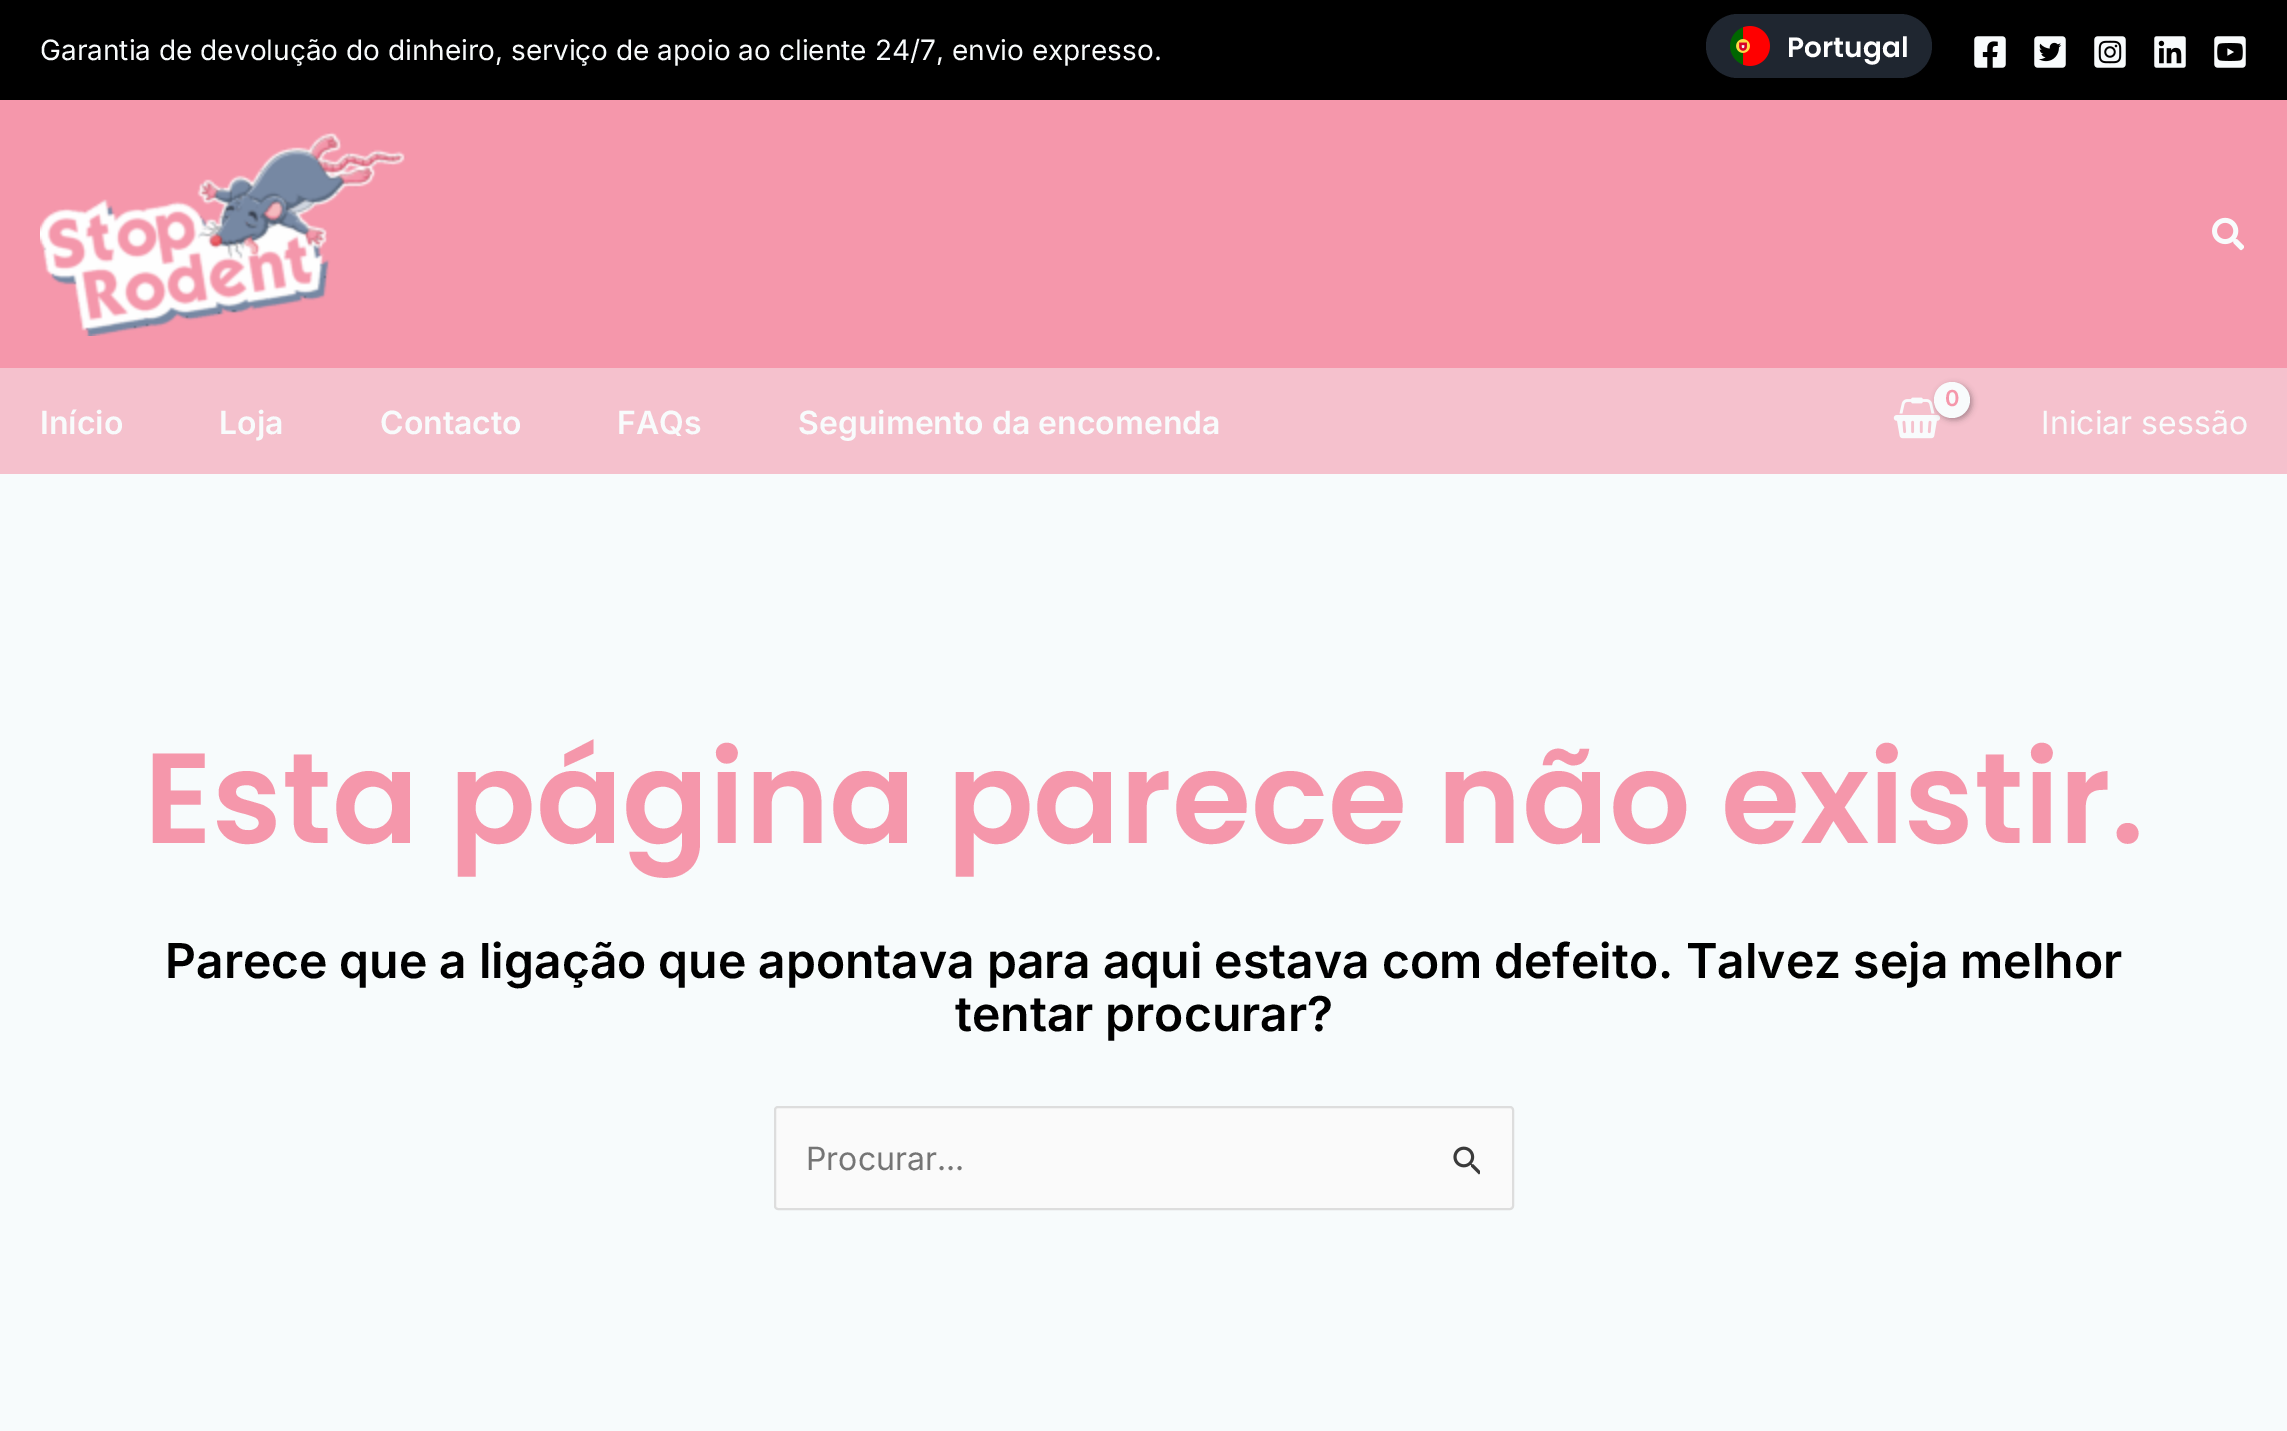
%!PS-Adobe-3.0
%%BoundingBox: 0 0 2287 1431
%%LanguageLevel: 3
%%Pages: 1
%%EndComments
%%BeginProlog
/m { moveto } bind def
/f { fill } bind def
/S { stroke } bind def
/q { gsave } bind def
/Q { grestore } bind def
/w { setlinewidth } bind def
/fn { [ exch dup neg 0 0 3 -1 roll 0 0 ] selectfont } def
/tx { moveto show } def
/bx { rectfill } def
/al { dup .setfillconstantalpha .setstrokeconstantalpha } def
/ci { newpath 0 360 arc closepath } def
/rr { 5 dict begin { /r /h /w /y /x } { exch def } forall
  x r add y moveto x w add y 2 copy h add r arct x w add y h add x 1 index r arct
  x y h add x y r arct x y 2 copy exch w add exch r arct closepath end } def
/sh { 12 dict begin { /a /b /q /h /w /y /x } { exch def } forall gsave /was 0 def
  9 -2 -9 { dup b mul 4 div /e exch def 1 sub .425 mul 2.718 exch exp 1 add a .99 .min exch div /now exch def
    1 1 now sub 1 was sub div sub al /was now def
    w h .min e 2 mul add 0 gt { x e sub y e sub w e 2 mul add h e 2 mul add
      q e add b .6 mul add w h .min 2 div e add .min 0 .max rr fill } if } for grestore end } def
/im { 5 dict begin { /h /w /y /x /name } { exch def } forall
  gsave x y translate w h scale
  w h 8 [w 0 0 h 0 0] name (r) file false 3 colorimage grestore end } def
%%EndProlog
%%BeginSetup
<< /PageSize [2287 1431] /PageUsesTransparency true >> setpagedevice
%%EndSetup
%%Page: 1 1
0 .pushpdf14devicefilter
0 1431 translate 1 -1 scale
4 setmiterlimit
0.969 0.984 0.988 setrgbcolor
0 0 2287 1431 bx
0 setgray
0 0 2287 100 bx
/Inter-Regular 28 fn
0.973 0.984 0.988 setrgbcolor
(Garantia de devolução do dinheiro, serviço de apoio ao cliente 24/7, envio expresso.) 40 60 tx
0.122 0.149 0.188 setrgbcolor
1706 14 226 64 32 rr f
(image0.raw) 1730 26 40 40 im
/Poppins-SemiBold 28 fn
1 setgray
(Portugal) 1787 57 tx
(image1.raw) 1974 36 32 32 im
(image2.raw) 2034 36 32 32 im
(image3.raw) 2094 36 32 32 im
(image4.raw) 2154 36 32 32 im
(image5.raw) 2214 36 32 32 im
0.961 0.592 0.671 setrgbcolor
0 100 2287 268 bx
(image6.raw) 40 132 366 204 im
(image7.raw) 2212 217 32 34 im
0.961 0.757 0.804 setrgbcolor
0 368 2287 106 bx
/Inter-SemiBold 32 fn
0.973 0.984 0.988 setrgbcolor
(Início) 40 434 tx
(Loja) 219 434 tx
(Contacto) 380 434 tx
(FAQs) 617 434 tx
(Seguimento da encomenda) 798 434 tx
(image8.raw) 1893 397 47 42 im
0 setgray
1936 384 36 36 18 3 0.3 sh
0.973 0.984 0.988 setrgbcolor
1952 400 18 ci f
/Inter-SemiBold 22 fn
0.961 0.592 0.671 setrgbcolor
1945 406 m -1 0 (0) ashow
/Inter-Regular 32 fn
0.973 0.984 0.988 setrgbcolor
(Iniciar sessão) 2041 434 tx
/Poppins-SemiBold 128 fn
0.961 0.592 0.671 setrgbcolor
(Esta página parece não existir.) 144 843 tx
/Inter-SemiBold 48 fn
0 setgray
(Parece que a ligação que apontava para aqui estava com defeito. Talvez seja melhor) 165 978 tx
(tentar procurar?) 955 1031 tx
0.98 setgray
775 1107 738 102 3 rr q f Q
0.867 setgray
2 w
S
/Inter-Regular 32 fn
0.459 setgray
(Procurar...) 806 1170 tx
(image9.raw) 1453 1146 27 29 im
.poppdf14devicefilter showpage
%%EOF
